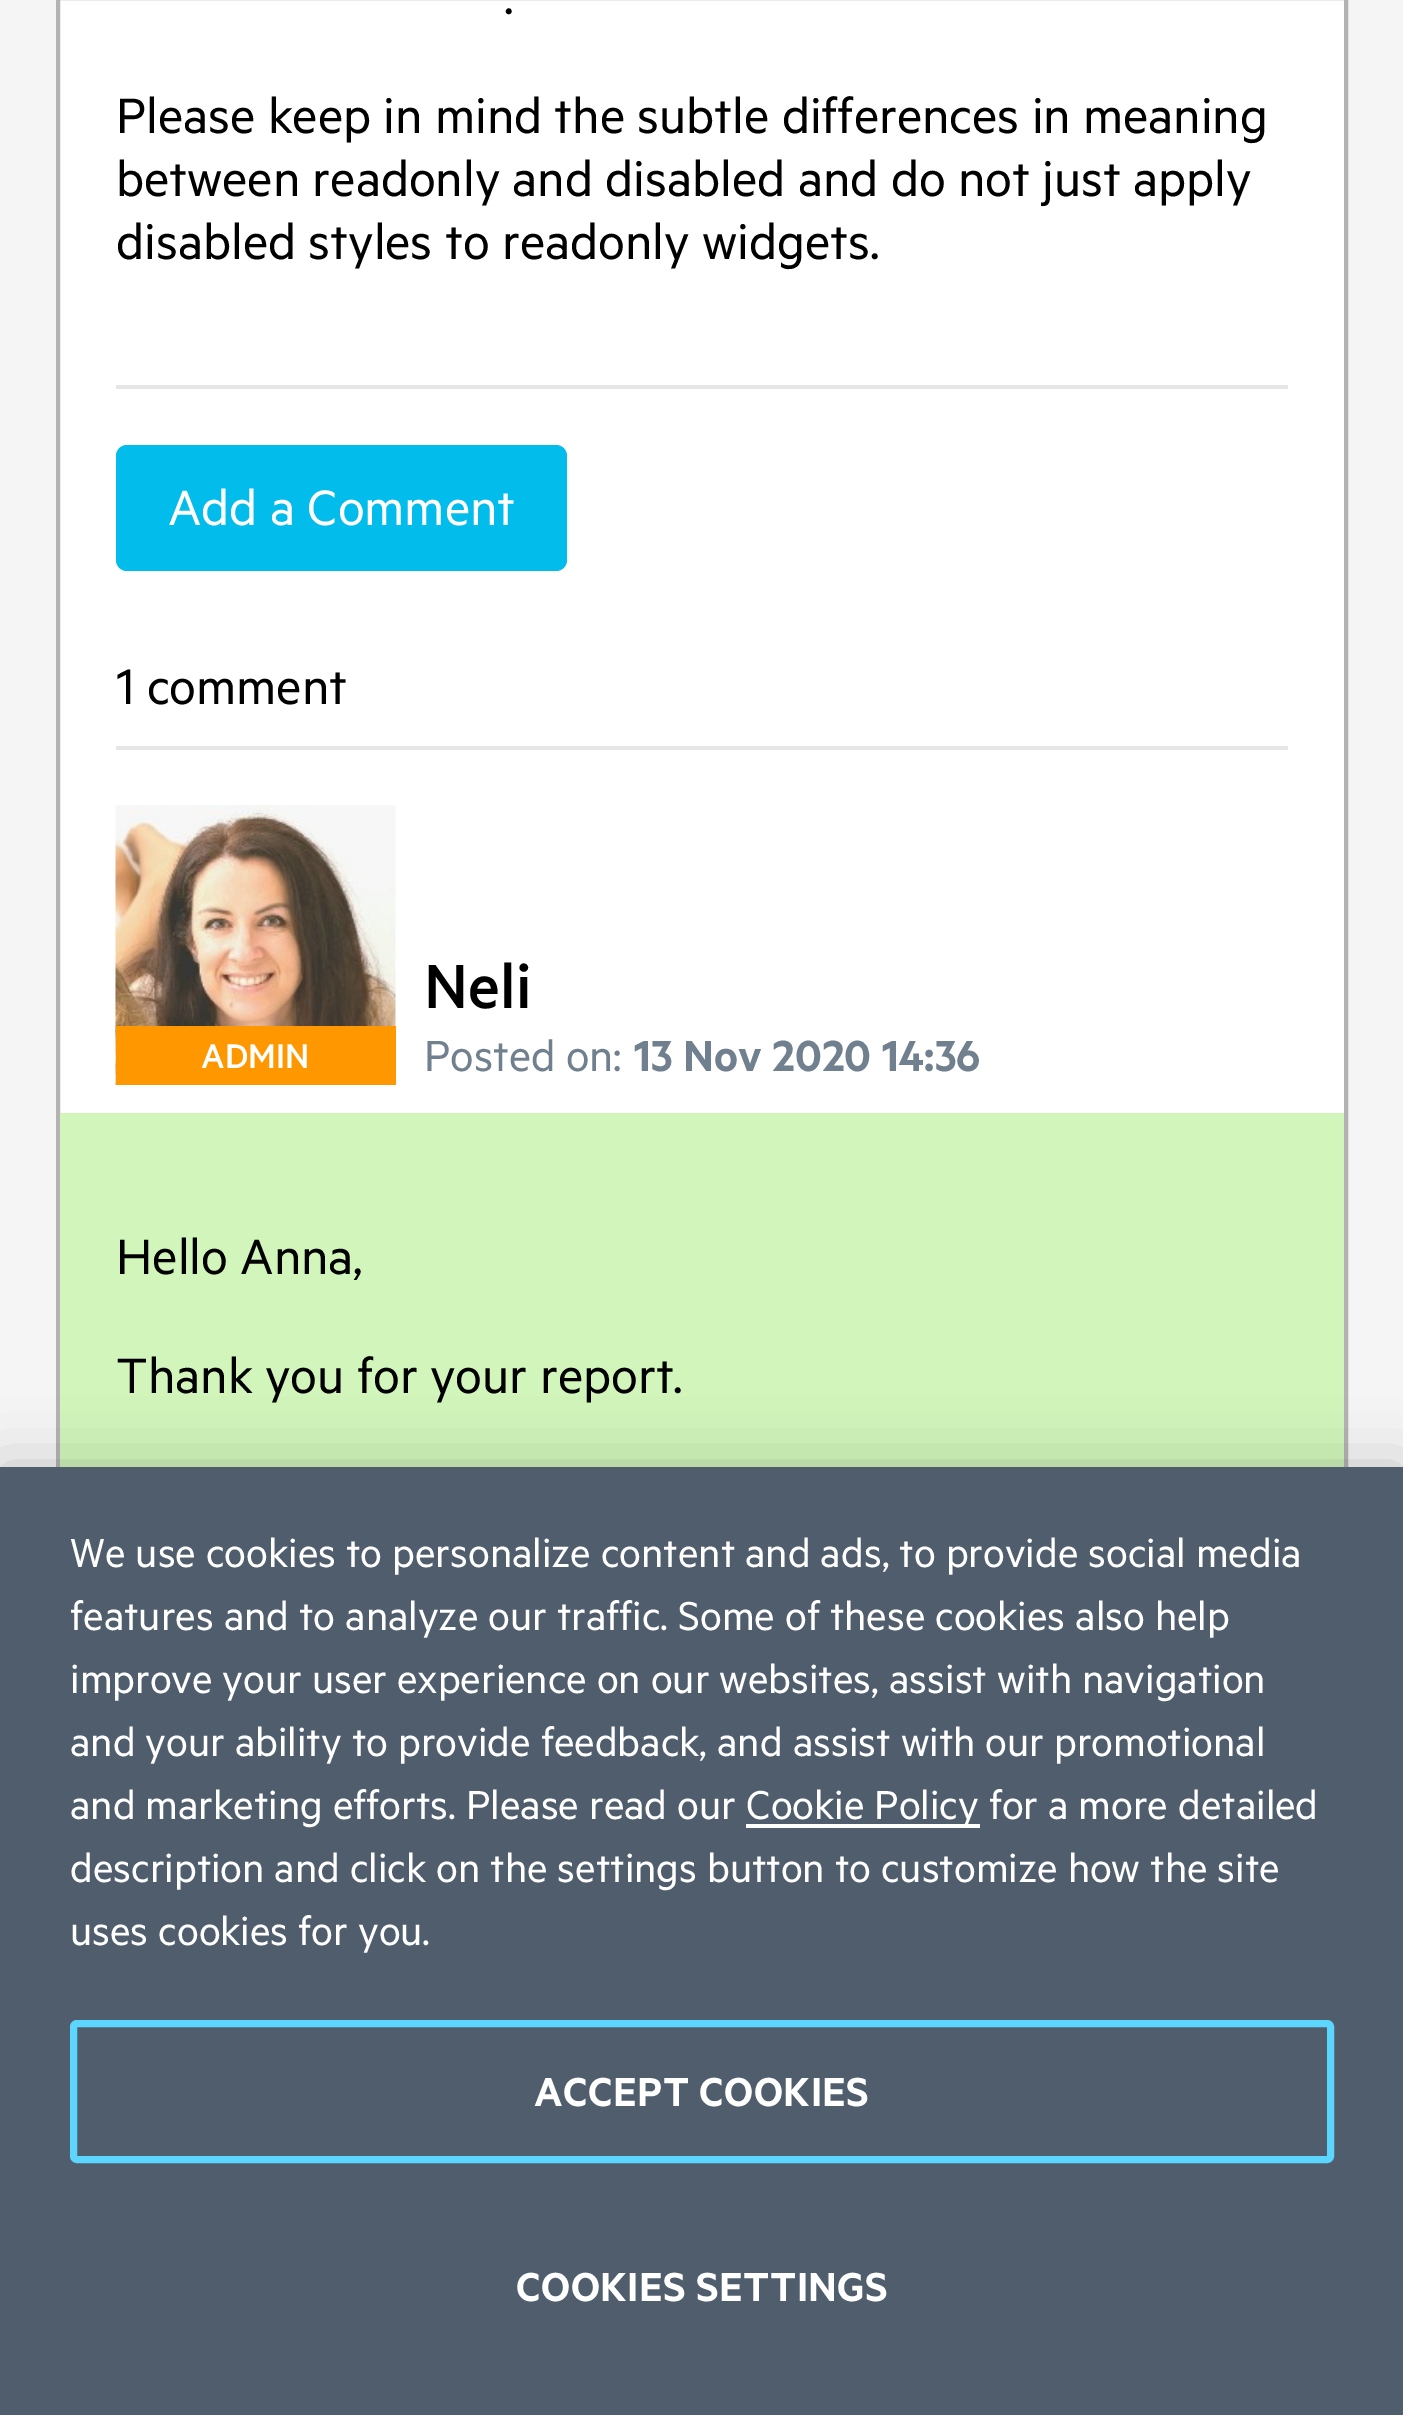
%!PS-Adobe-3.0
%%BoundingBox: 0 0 1403 2415
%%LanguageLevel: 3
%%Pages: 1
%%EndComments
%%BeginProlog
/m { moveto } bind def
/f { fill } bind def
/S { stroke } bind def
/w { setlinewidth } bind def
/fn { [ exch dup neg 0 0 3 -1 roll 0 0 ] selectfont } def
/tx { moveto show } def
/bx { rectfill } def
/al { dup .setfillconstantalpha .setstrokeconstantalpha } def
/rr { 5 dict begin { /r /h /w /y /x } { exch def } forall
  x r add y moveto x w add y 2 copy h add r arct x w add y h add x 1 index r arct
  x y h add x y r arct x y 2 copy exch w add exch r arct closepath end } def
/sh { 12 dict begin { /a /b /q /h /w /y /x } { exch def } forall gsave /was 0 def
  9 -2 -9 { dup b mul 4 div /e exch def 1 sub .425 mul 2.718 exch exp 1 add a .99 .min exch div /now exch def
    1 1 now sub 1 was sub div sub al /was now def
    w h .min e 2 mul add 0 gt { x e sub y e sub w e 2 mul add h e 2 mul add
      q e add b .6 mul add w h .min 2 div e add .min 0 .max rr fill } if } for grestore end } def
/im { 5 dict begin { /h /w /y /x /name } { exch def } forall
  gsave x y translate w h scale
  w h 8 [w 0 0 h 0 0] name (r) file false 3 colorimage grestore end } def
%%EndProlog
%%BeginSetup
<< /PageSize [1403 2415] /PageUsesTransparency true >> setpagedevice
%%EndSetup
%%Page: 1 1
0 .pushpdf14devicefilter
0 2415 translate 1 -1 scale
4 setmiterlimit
0.961 setgray
0 0 1403 2415 bx
1 setgray
60 0 1284 1113 bx
0.702 setgray
4 w
58 -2 1288 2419 rectstroke
0.902 setgray
116 385 1172 4 bx
/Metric-Regular 56 fn
0 setgray
(.) 504 14 tx
(Please keep in mind the subtle differences in meaning) 116 133 tx
(between readonly and disabled and do not just apply) 116 196 tx
(disabled styles to readonly widgets.) 116 259 tx
0.008 0.737 0.922 setrgbcolor
116 445 451 126 11 rr f
1 setgray
(Add a Comment) 168 525 tx
0.902 setgray
116 746 1172 4 bx
0 setgray
(1 comment) 116 704 tx
(image0.raw) 115 805 281 280 im
1 0.596 0 setrgbcolor
116 1026 280 59 bx
/Metric-Medium 38.5 fn
1 setgray
(ADMIN) 201 1068 tx
/Metric-Medium 70 fn
0 setgray
(Neli) 424 1008 tx
/Metric-Regular 49 fn
0.443 0.502 0.561 setrgbcolor
(Posted on:) 424 1071 tx
/Metric-SemiBold 49 fn
(13 Nov 2020 14:36) 634 1071 tx
0.82 0.961 0.729 setrgbcolor
60 1113 1284 354 bx
/Metric-Regular 56 fn
0 setgray
(Hello Anna,) 116 1274 tx
(Thank you for your report.) 116 1393 tx
0 1467 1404 948 0 31.5 0.2 sh
0.31 0.365 0.424 setrgbcolor
0 1467 1403 948 bx
/Metric-Regular 45.5 fn
1 setgray
(We use cookies to personalize content and ads, to provide social media) 70 1567 tx
(features and to analyze our traffic. Some of these cookies also help) 70 1630 tx
(improve your user experience on our websites, assist with navigation) 70 1693 tx
(and your ability to provide feedback, and assist with our promotional) 70 1756 tx
(and marketing efforts. Please read our) 70 1819 tx
746 1824 234 4 bx
(Cookie Policy for a more detailed) 746 1819 tx
(description and click on the settings button to customize how the site) 70 1882 tx
(uses cookies for you.) 70 1945 tx
0.361 0.835 1 setrgbcolor
7 w
73.5 2023.5 1257 136 3.5 rr S
/Metric-SemiBold 45.5 fn
1 setgray
534 2106 m 0.5 0 (ACCEPT COOKIES) ashow
516 2301 m 0.5 0 (COOKIES SETTINGS) ashow
.poppdf14devicefilter showpage
%%EOF
